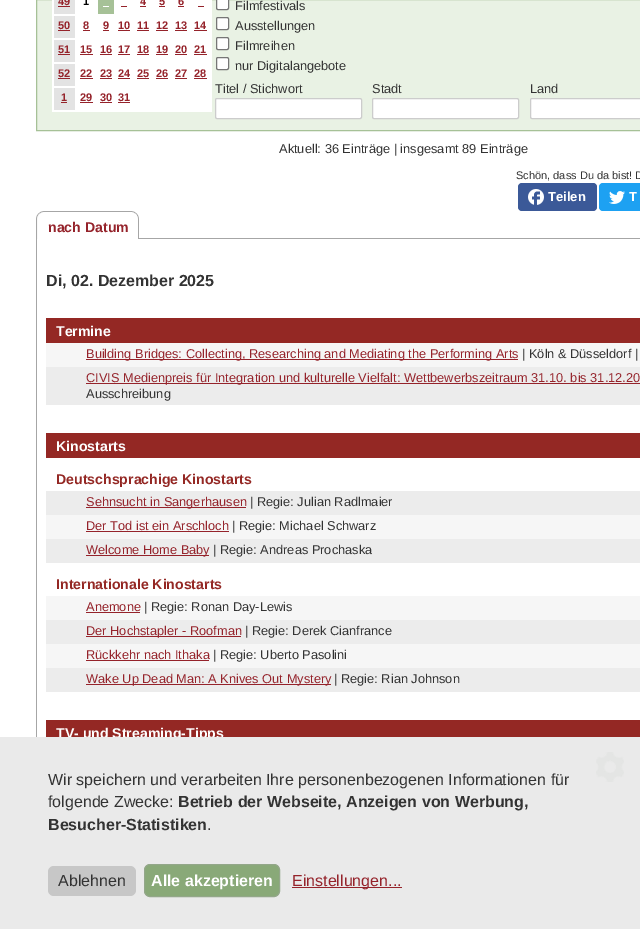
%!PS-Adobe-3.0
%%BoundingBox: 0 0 640 929
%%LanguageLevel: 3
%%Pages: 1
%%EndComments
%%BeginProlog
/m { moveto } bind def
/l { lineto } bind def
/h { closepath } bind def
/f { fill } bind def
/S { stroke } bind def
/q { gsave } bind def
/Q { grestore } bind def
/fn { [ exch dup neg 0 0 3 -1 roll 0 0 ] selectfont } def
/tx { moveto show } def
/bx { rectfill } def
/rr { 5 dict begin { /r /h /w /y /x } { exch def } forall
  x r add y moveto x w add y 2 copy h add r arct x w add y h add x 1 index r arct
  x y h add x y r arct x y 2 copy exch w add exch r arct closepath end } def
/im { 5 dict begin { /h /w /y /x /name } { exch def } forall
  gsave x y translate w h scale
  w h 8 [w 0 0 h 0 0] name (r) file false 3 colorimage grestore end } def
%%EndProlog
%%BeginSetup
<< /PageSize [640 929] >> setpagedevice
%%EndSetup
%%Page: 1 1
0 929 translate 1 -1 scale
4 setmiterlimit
1 setgray
0 0 640 929 bx
0.914 0.949 0.894 setrgbcolor
36.5 -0.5 m 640.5 -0.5 l 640.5 130.5 l 36.5 130.5 l h q f Q
0.651 0.757 0.592 setrgbcolor
S
1 setgray
52 0 160 112 bx
0.89 setgray
54 0 21 14 bx
/LiberationSans-Bold 11 fn
0.584 0.137 0.169 setrgbcolor
(49) 58 5 tx
58 6 12 1 bx
0 setgray
(1) 83 5 tx
0.651 0.757 0.592 setrgbcolor
98 0 16 14 bx
1 setgray
103 6 6 1 bx
0.584 0.137 0.169 setrgbcolor
(4) 140 5 tx
140 6 6 1 bx
(5) 159 5 tx
159 6 6 1 bx
(6) 178 5 tx
178 6 6 1 bx
121 6 6 1 bx
198 6 6 1 bx
0.89 setgray
54 16 21 22 bx
0.584 0.137 0.169 setrgbcolor
(50) 58 29 tx
58 30 12 1 bx
(8) 83 29 tx
83 30 7 1 bx
(9) 103 29 tx
103 30 6 1 bx
(10) 118 29 tx
118 30 12 1 bx
(11) 137 29 tx
137 30 12 1 bx
(12) 156 29 tx
156 30 12 1 bx
(13) 175 29 tx
175 30 12 1 bx
(14) 194 29 tx
194 30 13 1 bx
0.89 setgray
54 40 21 22 bx
0.584 0.137 0.169 setrgbcolor
(51) 58 53 tx
58 54 12 1 bx
(15) 80 53 tx
80 54 13 1 bx
(16) 100 53 tx
100 54 12 1 bx
(17) 118 53 tx
118 54 12 1 bx
(18) 137 53 tx
137 54 12 1 bx
(19) 156 53 tx
156 54 12 1 bx
(20) 175 53 tx
175 54 12 1 bx
(21) 194 53 tx
194 54 13 1 bx
0.89 setgray
54 64 21 22 bx
0.584 0.137 0.169 setrgbcolor
(52) 58 77 tx
58 78 12 1 bx
(22) 80 77 tx
80 78 13 1 bx
(23) 100 77 tx
100 78 12 1 bx
(24) 118 77 tx
118 78 12 1 bx
(25) 137 77 tx
137 78 12 1 bx
(26) 156 77 tx
156 78 12 1 bx
(27) 175 77 tx
175 78 12 1 bx
(28) 194 77 tx
194 78 13 1 bx
0.89 setgray
54 88 21 22 bx
0.584 0.137 0.169 setrgbcolor
(1) 61 101 tx
61 102 6 1 bx
(29) 80 101 tx
80 102 13 1 bx
(30) 100 101 tx
100 102 12 1 bx
(31) 118 101 tx
118 102 12 1 bx
1 setgray
216.5 -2.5 12 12 1.5 rr q f Q
0.463 setgray
S
/LiberationSans-Regular 12.8 fn
0.2 setgray
(Filmfestivals) 235 10 tx
1 setgray
216.5 17.5 12 12 1.5 rr q f Q
0.463 setgray
S
0.2 setgray
(Ausstellungen) 235 30 tx
1 setgray
216.5 37.5 12 12 1.5 rr q f Q
0.463 setgray
S
0.2 setgray
(Filmreihen) 235 50 tx
1 setgray
216.5 57.5 12 12 1.5 rr q f Q
0.463 setgray
S
0.2 setgray
(nur Digitalangebote) 235 70 tx
(Titel / Stichwort) 215 93 tx
1 setgray
215.5 98.5 146 20 1.5 rr q f Q
0.8 setgray
S
0.2 setgray
(Stadt) 372 93 tx
1 setgray
372.5 98.5 146 20 1.5 rr q f Q
0.8 setgray
S
0.2 setgray
(Land) 530 93 tx
1 setgray
530.5 98.5 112 20 1.5 rr q f Q
0.8 setgray
S
0.2 setgray
(Aktuell: 36 Einträge | insgesamt 89 Einträge) 279 153 tx
/LiberationSans-Regular 11 fn
(Schön, dass Du da bist! D) 516 179 tx
0.231 0.349 0.596 setrgbcolor
518 183 79 28 4 rr f
(image0.raw) 528 189 16 16 im
/LiberationSans-Bold 13 fn
1 setgray
(Teilen) 548 201 tx
0.114 0.631 0.949 setrgbcolor
599 183 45 28 4 rr f
(image1.raw) 609 191 16 13 im
1 setgray
(T) 629 201 tx
0.651 setgray
141 238 499 1 bx
(image2.raw) 36 211 96 28 im
(image3.raw) 132 211 9 28 im
/LiberationSans-Bold 14.1 fn
0.584 0.137 0.169 setrgbcolor
(nach Datum) 48 232 tx
0.651 setgray
36 239 1 498 bx
/LiberationSans-Bold 16 fn
0.2 setgray
(Di, 02. Dezember 2025) 46 286 tx
0.58 0.157 0.141 setrgbcolor
46 318 594 25 bx
/LiberationSans-Bold 14.1 fn
1 setgray
(Termine) 56 336 tx
0.965 setgray
46 343 594 24 bx
0.584 0.137 0.169 setrgbcolor
86 359 432 1 bx
/LiberationSans-Regular 12.8 fn
(Building Bridges: Collecting, Researching and Mediating the Performing Arts) 86 358 tx
0.2 setgray
(| Köln & Düsseldorf |) 522 358 tx
0.925 setgray
46 367 594 38 bx
0.584 0.137 0.169 setrgbcolor
86 383 554 1 bx
(CIVIS Medienpreis für Integration und kulturelle Vielfalt: Wettbewerbszeitraum 31.10. bis 31.12.20) 86 382 tx
0.2 setgray
(Ausschreibung) 86 398 tx
0.58 0.157 0.141 setrgbcolor
46 433 594 25 bx
/LiberationSans-Bold 14.1 fn
1 setgray
(Kinostarts) 56 451 tx
0.58 0.157 0.141 setrgbcolor
(Deutschsprachige Kinostarts) 56 484 tx
0.925 setgray
46 491 594 24 bx
0.584 0.137 0.169 setrgbcolor
86 507 160 1 bx
/LiberationSans-Regular 12.8 fn
(Sehnsucht in Sangerhausen) 86 506 tx
0.2 setgray
(| Regie: Julian Radlmaier) 250 506 tx
0.965 setgray
46 515 594 24 bx
0.584 0.137 0.169 setrgbcolor
(Der Tod ist ein Arschloch) 86 530 tx
86 531 143 1 bx
0.2 setgray
(| Regie: Michael Schwarz) 232 530 tx
0.925 setgray
46 539 594 24 bx
0.584 0.137 0.169 setrgbcolor
86 555 123 1 bx
(Welcome Home Baby) 86 554 tx
0.2 setgray
(| Regie: Andreas Prochaska) 213 554 tx
/LiberationSans-Bold 14.1 fn
0.58 0.157 0.141 setrgbcolor
(Internationale Kinostarts) 56 589 tx
0.965 setgray
46 596 594 24 bx
/LiberationSans-Regular 12.8 fn
0.584 0.137 0.169 setrgbcolor
(Anemone) 86 611 tx
86 612 54 1 bx
0.2 setgray
(| Regie: Ronan Day-Lewis) 144 611 tx
0.925 setgray
46 620 594 24 bx
0.584 0.137 0.169 setrgbcolor
86 636 155 1 bx
(Der Hochstapler - Roofman) 86 635 tx
0.2 setgray
(| Regie: Derek Cianfrance) 245 635 tx
0.965 setgray
46 644 594 24 bx
0.584 0.137 0.169 setrgbcolor
(Rückkehr nach Ithaka) 86 659 tx
86 660 123 1 bx
0.2 setgray
(| Regie: Uberto Pasolini) 213 659 tx
0.925 setgray
46 668 594 24 bx
0.584 0.137 0.169 setrgbcolor
86 684 245 1 bx
(Wake Up Dead Man: A Knives Out Mystery) 86 683 tx
0.2 setgray
(| Regie: Rian Johnson) 334 683 tx
0.58 0.157 0.141 setrgbcolor
46 720 594 17 bx
/LiberationSans-Bold 14.1 fn
1 setgray
(TV- und Streaming-Tipps) 56 738 tx
0.918 setgray
0 737 640 192 bx
(image4.raw) 596 752 28 30 im
/LiberationSans-Regular 16 fn
0.2 setgray
(Wir speichern und verarbeiten Ihre personenbezogenen Informationen für) 48 785 tx
(folgende Zwecke:) 48 807 tx
/LiberationSans-Bold 16 fn
(Betrieb der Webseite, Anzeigen von Werbung,) 178 807 tx
(Besucher-Statistiken) 48 830 tx
/LiberationSans-Regular 16 fn
(.) 207 830 tx
0.78 setgray
48 866 88 30 6 rr f
0.2 setgray
(Ablehnen) 58 886 tx
0.537 0.663 0.471 setrgbcolor
144.5 864.5 135 32 5.5 rr q f Q
0.576 0.655 0.537 setrgbcolor
S
/LiberationSans-Bold 16 fn
1 setgray
(Alle akzeptieren) 151 886 tx
0.584 0.137 0.169 setrgbcolor
292 887 110 1 bx
/LiberationSans-Regular 16 fn
(Einstellungen...) 292 886 tx
showpage
%%EOF
